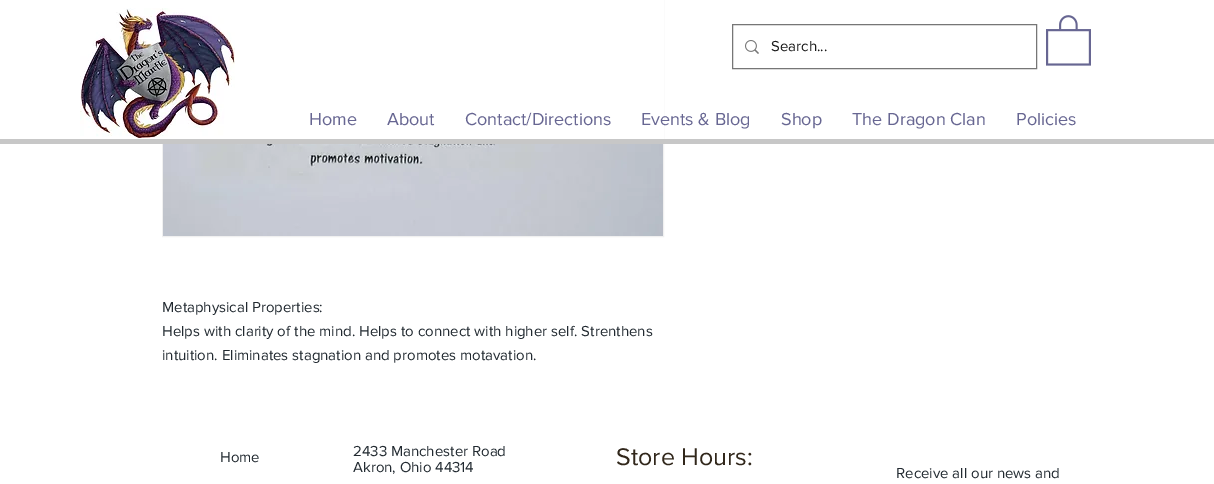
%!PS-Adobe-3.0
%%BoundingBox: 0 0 1214 484
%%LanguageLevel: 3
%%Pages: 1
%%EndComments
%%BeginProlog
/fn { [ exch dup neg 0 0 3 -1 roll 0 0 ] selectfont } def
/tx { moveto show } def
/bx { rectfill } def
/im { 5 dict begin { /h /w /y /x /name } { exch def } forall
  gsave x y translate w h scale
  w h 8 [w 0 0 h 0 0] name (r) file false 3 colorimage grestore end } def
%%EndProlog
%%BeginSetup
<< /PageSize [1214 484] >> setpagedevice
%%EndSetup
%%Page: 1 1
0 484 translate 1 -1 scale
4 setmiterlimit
1 setgray
0 0 1214 484 bx
0.941 setgray
162.5 -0.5 501 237 rectstroke
1 setgray
162 0 502 139 bx
(image0.raw) 80 8 155 130 im
0.78 setgray
0 139 1214 5 bx
0.463 setgray
732.5 24.5 304 44 rectstroke
(image1.raw) 745 40 14 14 im
/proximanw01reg-Regular 15 fn
0.102 setgray
(Search...) 771 51 tx
(image2.raw) 1046 15 45 51 im
/proximanw01reg-Regular 18 fn
0.404 0.4 0.573 setrgbcolor
(Home) 309 125 tx
(About) 387 125 tx
(Contact/Directions) 465 125 tx
(Events & Blog) 641 125 tx
(Shop) 781 125 tx
(The Dragon Clan) 852 125 tx
(Policies) 1016 125 tx
(image3.raw) 163 144 500 92 im
/proximanw01reg-Regular 15 fn
0.133 0.165 0.192 setrgbcolor
(Metaphysical Properties:) 162 312 tx
(Helps with clarity of the mind. Helps to connect with higher self. Strenthens) 162 336 tx
(intuition. Eliminates stagnation and promotes motavation.) 162 360 tx
(Home) 220 462 tx
(2433 Manchester Road) 353 456 tx
(Akron, Ohio 44314) 353 472 tx
/proximanw01reg-Regular 25 fn
0.192 0.153 0.106 setrgbcolor
(Store Hours:) 616 465 tx
/proximanw01reg-Regular 15 fn
0.133 0.165 0.192 setrgbcolor
(Receive all our news and) 896 478 tx
showpage
%%EOF
